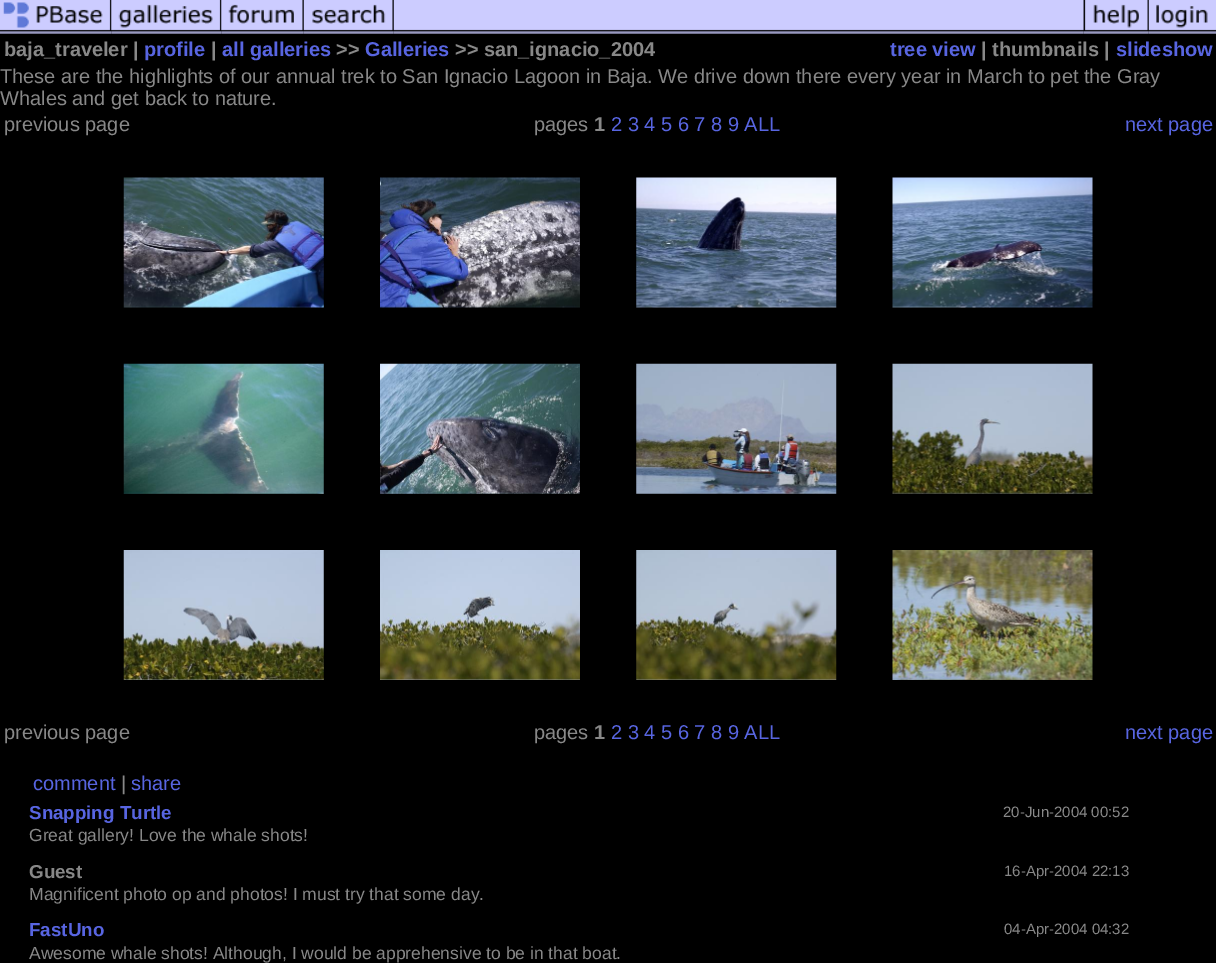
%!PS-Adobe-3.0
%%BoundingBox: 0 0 1216 963
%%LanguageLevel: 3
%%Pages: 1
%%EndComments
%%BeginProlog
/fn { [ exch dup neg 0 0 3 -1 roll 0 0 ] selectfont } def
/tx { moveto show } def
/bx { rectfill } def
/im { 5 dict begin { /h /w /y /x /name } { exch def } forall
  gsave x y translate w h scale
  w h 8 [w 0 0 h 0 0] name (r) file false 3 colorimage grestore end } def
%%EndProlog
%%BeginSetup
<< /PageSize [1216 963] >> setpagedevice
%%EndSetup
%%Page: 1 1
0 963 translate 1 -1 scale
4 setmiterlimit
0 setgray
0 0 1216 963 bx
(image0.raw) 0 0 112 34 im
(image1.raw) 111 0 111 34 im
(image2.raw) 221 0 83 34 im
(image3.raw) 303 0 91 34 im
(image4.raw) 393 0 691 34 im
(image5.raw) 1083 0 66 34 im
(image6.raw) 1148 0 68 34 im
/LiberationSans-Bold 20 fn
0.533 setgray
(baja_traveler |) 4 56 tx
0.345 0.396 0.882 setrgbcolor
(profile) 144 56 tx
0.533 setgray
(|) 211 56 tx
0.345 0.396 0.882 setrgbcolor
(all galleries) 222 56 tx
0.533 setgray
(>>) 336 56 tx
0.345 0.396 0.882 setrgbcolor
(Galleries) 365 56 tx
0.533 setgray
(>> san_ignacio_2004) 455 56 tx
0.345 0.396 0.882 setrgbcolor
(tree view) 890 56 tx
0.533 setgray
(| thumbnails |) 981 56 tx
0.345 0.396 0.882 setrgbcolor
(slideshow) 1116 56 tx
/LiberationSans-Regular 20 fn
0.533 setgray
(These are the highlights of our annual trek to San Ignacio Lagoon in Baja. We drive down there every year in March to pet the Gray) 0 83 tx
(Whales and get back to nature.) 0 105 tx
(previous page) 4 131 tx
(pages) 534 131 tx
/LiberationSans-Bold 20 fn
(1) 594 131 tx
/LiberationSans-Regular 20 fn
0.345 0.396 0.882 setrgbcolor
(2 3 4 5 6 7 8 9 ALL) 611 131 tx
(next page) 1125 131 tx
(image7.raw) 123 177 201 131 im
(image8.raw) 380 177 200 131 im
(image9.raw) 636 177 201 131 im
(image10.raw) 892 177 201 131 im
(image11.raw) 123 363 201 131 im
(image12.raw) 380 363 200 131 im
(image13.raw) 636 363 201 131 im
(image14.raw) 892 363 201 131 im
(image15.raw) 123 550 201 130 im
(image16.raw) 380 550 200 130 im
(image17.raw) 636 550 201 130 im
(image18.raw) 892 550 201 130 im
0.533 setgray
(previous page) 4 739 tx
(pages) 534 739 tx
/LiberationSans-Bold 20 fn
(1) 594 739 tx
/LiberationSans-Regular 20 fn
0.345 0.396 0.882 setrgbcolor
(2 3 4 5 6 7 8 9 ALL) 611 739 tx
(next page) 1125 739 tx
(comment) 33 790 tx
0.533 setgray
(|) 121 790 tx
0.345 0.396 0.882 setrgbcolor
(share) 131 790 tx
/LiberationSans-Bold 18.75 fn
(Snapping Turtle) 29 819 tx
/LiberationSans-Regular 15 fn
0.533 setgray
(20-Jun-2004 00:52) 1003 817 tx
/LiberationSans-Regular 17.5 fn
(Great gallery! Love the whale shots!) 29 841 tx
/LiberationSans-Bold 18.75 fn
(Guest) 29 878 tx
/LiberationSans-Regular 15 fn
(16-Apr-2004 22:13) 1004 876 tx
/LiberationSans-Regular 17.5 fn
(Magnificent photo op and photos! I must try that some day.) 29 900 tx
/LiberationSans-Bold 18.75 fn
0.345 0.396 0.882 setrgbcolor
(FastUno) 29 936 tx
/LiberationSans-Regular 15 fn
0.533 setgray
(04-Apr-2004 04:32) 1004 934 tx
/LiberationSans-Regular 17.5 fn
(Awesome whale shots! Although, I would be apprehensive to be in that boat.) 29 959 tx
showpage
%%EOF
